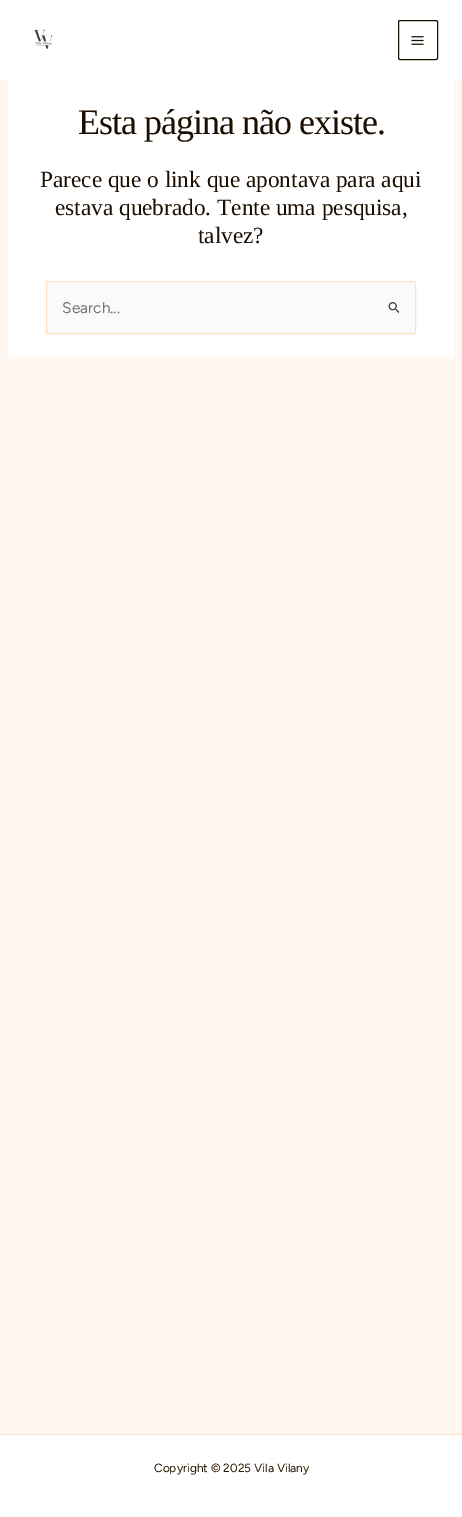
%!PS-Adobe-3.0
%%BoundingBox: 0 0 462 1517
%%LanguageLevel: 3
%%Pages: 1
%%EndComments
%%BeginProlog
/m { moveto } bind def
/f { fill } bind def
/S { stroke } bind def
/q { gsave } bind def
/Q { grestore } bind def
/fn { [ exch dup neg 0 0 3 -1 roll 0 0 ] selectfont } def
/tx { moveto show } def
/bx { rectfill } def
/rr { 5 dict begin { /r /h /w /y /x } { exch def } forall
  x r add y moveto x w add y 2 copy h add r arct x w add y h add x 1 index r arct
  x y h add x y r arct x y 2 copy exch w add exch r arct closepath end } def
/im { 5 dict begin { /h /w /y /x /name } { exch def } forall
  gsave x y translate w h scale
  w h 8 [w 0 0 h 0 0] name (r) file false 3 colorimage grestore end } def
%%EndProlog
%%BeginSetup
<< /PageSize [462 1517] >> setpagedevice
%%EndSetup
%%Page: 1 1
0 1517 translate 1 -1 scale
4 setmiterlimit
1 0.969 0.941 setrgbcolor
0 0 462 1517 bx
1 setgray
0 0 462 80 bx
(image0.raw) 33 29 21 20 im
0.11 0.063 0.004 setrgbcolor
398.5 20.5 39 39 1.5 rr S
(image1.raw) 411 36 13 9 im
1 setgray
8 80 446 277 bx
/LiberationSerif-Regular 36 fn
0.102 0.055 0 setrgbcolor
78 134 m -1 0 (Esta página não existe.) ashow
/LiberationSerif-Regular 23.25 fn
(Parece que o link que apontava para aqui) 40 187 tx
(estava quebrado. Tente uma pesquisa,) 55 215 tx
(talvez?) 198 243 tx
0.98 setgray
46.5 281.5 369 52 1.5 rr q f Q
1 0.878 0.757 setrgbcolor
S
/Figtree-Regular 15.5 fn
0.459 setgray
(Search...) 62 313 tx
(image2.raw) 388 302 11 12 im
1 setgray
0 1435 462 82 bx
1 0.878 0.757 setrgbcolor
0 1434 462 1 bx
/Figtree-Regular 11.9 fn
0.161 0.098 0.004 setrgbcolor
(Copyright © 2025 Vila Vilany) 154 1472 tx
showpage
%%EOF
